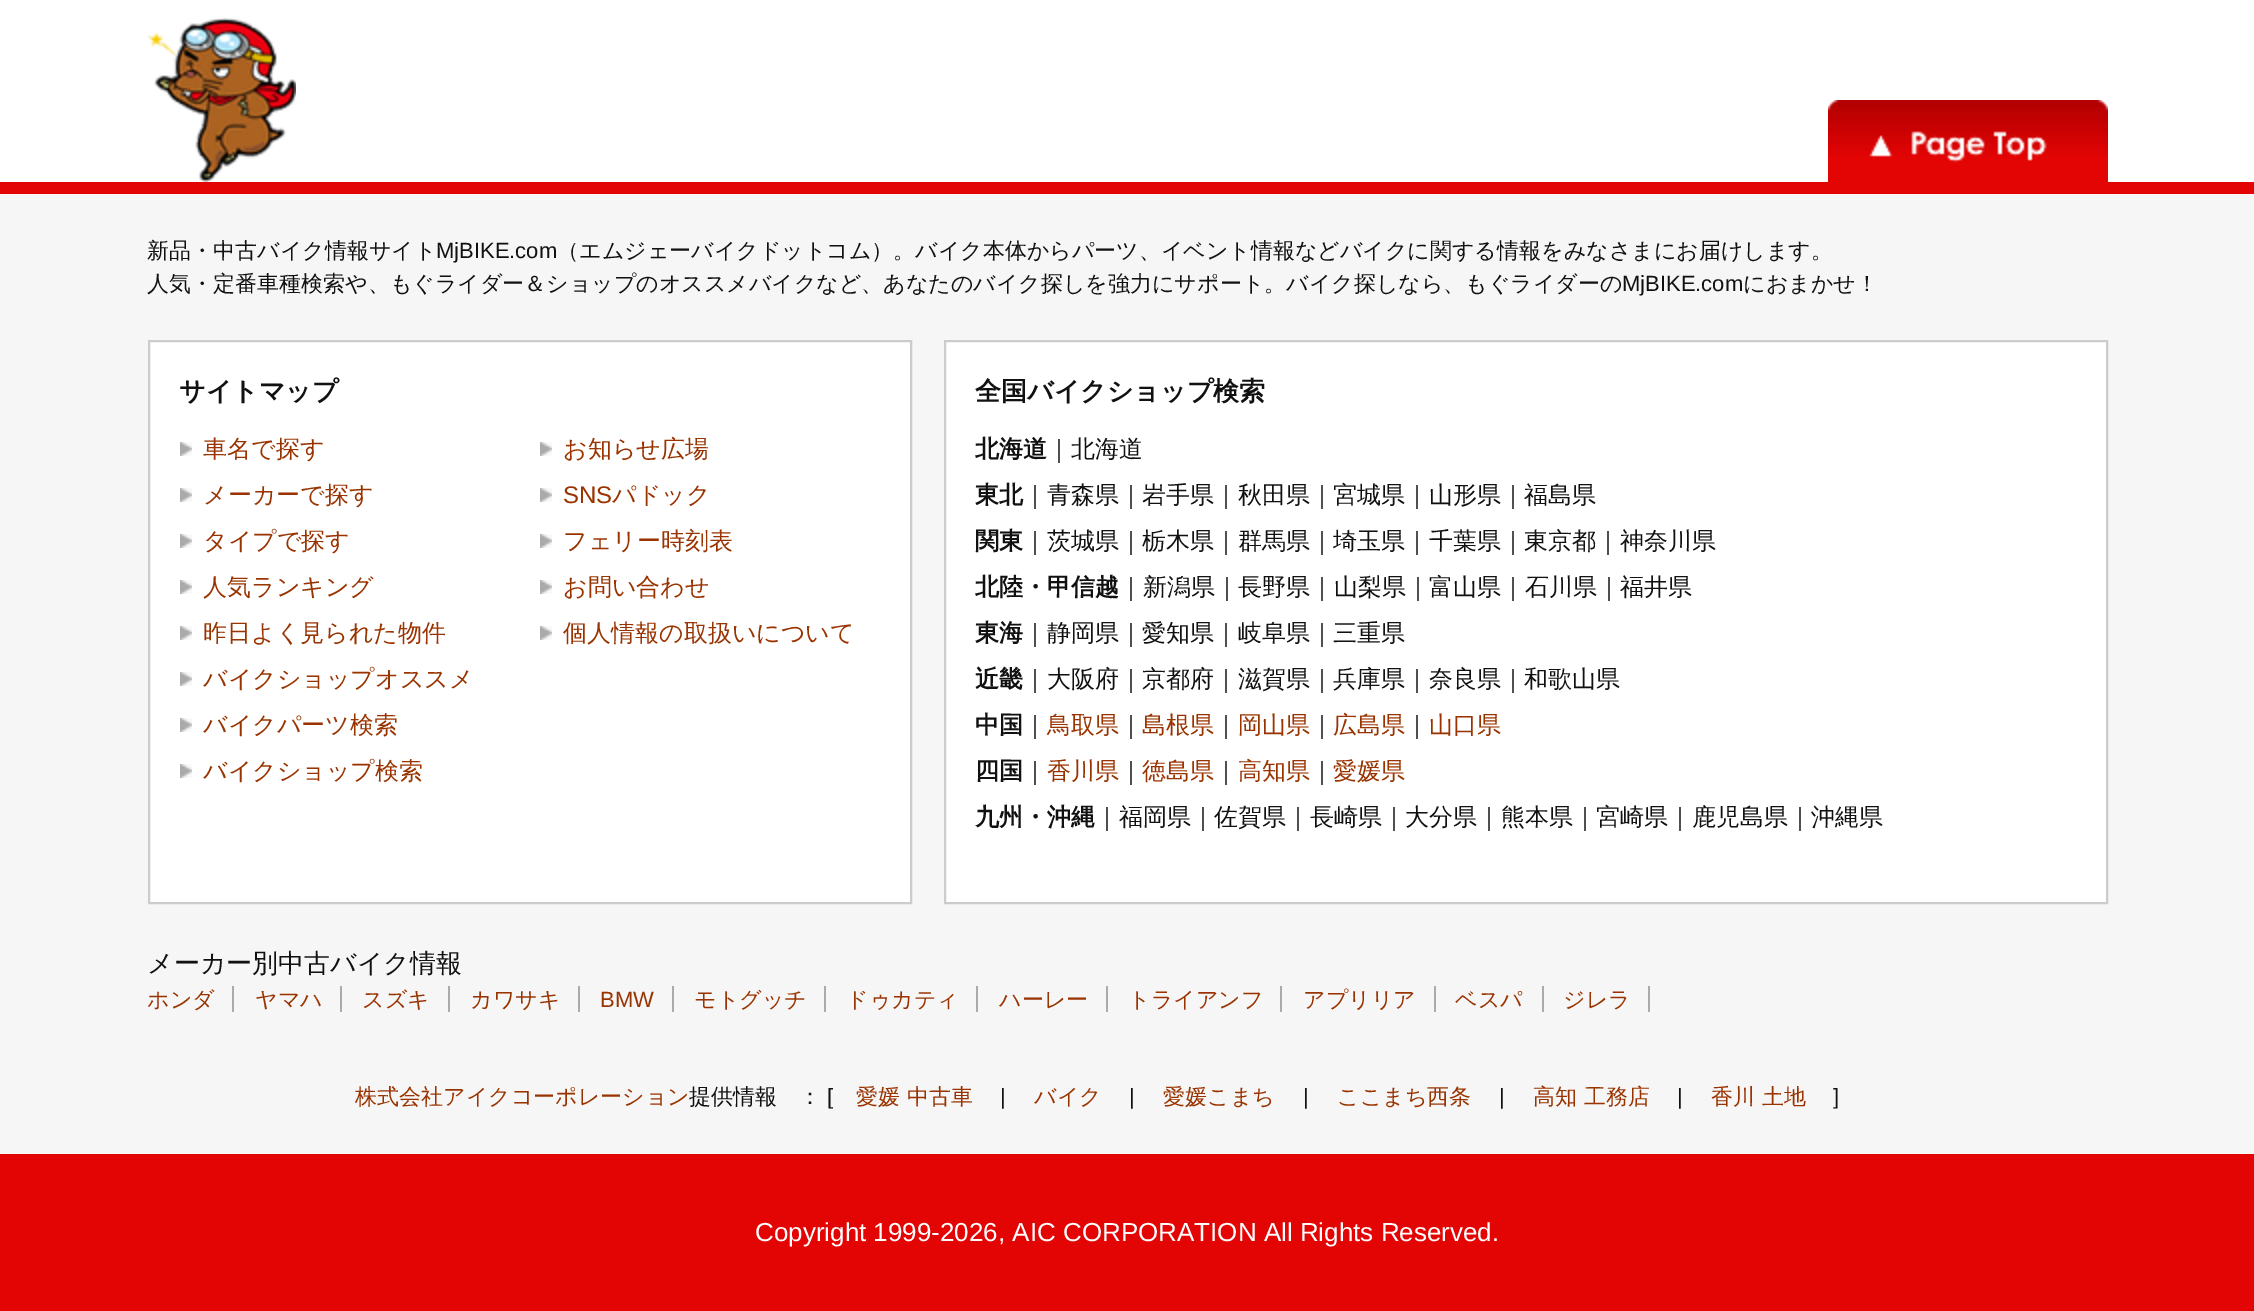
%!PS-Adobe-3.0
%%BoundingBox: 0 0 2254 1311
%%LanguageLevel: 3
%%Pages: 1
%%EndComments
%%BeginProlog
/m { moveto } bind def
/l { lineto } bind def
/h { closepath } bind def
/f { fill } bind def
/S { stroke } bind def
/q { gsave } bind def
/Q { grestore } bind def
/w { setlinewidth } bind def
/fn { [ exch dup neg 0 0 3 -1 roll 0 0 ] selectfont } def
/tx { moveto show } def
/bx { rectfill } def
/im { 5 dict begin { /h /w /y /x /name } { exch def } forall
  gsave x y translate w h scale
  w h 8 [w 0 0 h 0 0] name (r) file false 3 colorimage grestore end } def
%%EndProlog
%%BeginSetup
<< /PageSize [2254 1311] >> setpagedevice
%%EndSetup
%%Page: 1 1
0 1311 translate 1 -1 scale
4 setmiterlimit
1 setgray
0 0 2254 1311 bx
(image0.raw) 148 18 148 164 im
(image1.raw) 1828 100 280 82 im
0.965 setgray
0 194 2254 960 bx
0.89 0.016 0.016 setrgbcolor
0 182 2254 12 bx
/WenQuanYiZenHei-Medium 22 fn
0.067 setgray
(新品・中古バイク情報サイト) 147 258 tx
/LiberationSans-Regular 22 fn
(MjBIKE.com) 436 258 tx
/WenQuanYiZenHei-Medium 22 fn
(（エムジェーバイクドットコム）。バイク本体からパーツ、イベント情報などバイクに関する情報をみなさまにお届けします。) 557 258 tx
(人気・定番車種検索や、もぐライダー＆ショップのオススメバイクなど、あなたのバイク探しを強力にサポート。バイク探しなら、もぐライダーの) 147 291 tx
/LiberationSans-Regular 22 fn
(MjBIKE.com) 1622 291 tx
/WenQuanYiZenHei-Medium 22 fn
(におまかせ！) 1743 291 tx
1 setgray
149 341 m 911 341 l 911 903 l 149 903 l h q f Q
0.8 setgray
2 w
S
/WenQuanYiZenHei-Bold 26 fn
0.067 setgray
(サイトマップ) 179 400 tx
(image2.raw) 180 442 12 14 im
/WenQuanYiZenHei-Medium 24 fn
0.6 0.2 0 setrgbcolor
(車名で探す) 203 457 tx
(image2.raw) 180 488 12 14 im
(メーカーで探す) 203 503 tx
(image2.raw) 180 534 12 14 im
(タイプで探す) 203 549 tx
(image2.raw) 180 580 12 14 im
(人気ランキング) 203 595 tx
(image2.raw) 180 626 12 14 im
(昨日よく見られた物件) 203 641 tx
(image2.raw) 180 672 12 14 im
(バイクショップオススメ) 203 687 tx
(image2.raw) 180 718 12 14 im
(バイクパーツ検索) 203 733 tx
(image2.raw) 180 764 12 14 im
(バイクショップ検索) 203 779 tx
(image2.raw) 540 442 12 14 im
(お知らせ広場) 563 457 tx
(image2.raw) 540 488 12 14 im
/LiberationSans-Regular 24 fn
(SNS) 563 503 tx
/WenQuanYiZenHei-Medium 24 fn
(パドック) 612 503 tx
(image2.raw) 540 534 12 14 im
(フェリー時刻表) 563 549 tx
(image2.raw) 540 580 12 14 im
(お問い合わせ) 563 595 tx
(image2.raw) 540 626 12 14 im
(個人情報の取扱いについて) 563 641 tx
1 setgray
945 341 m 2107 341 l 2107 903 l 945 903 l h q f Q
0.8 setgray
S
/WenQuanYiZenHei-Bold 26 fn
0.067 setgray
(全国バイクショップ検索) 975 400 tx
/WenQuanYiZenHei-Bold 24 fn
(北海道) 975 457 tx
/WenQuanYiZenHei-Medium 24 fn
(｜北海道) 1047 457 tx
/WenQuanYiZenHei-Bold 24 fn
(東北) 975 503 tx
/WenQuanYiZenHei-Medium 24 fn
(｜青森県｜岩手県｜秋田県｜宮城県｜山形県｜福島県) 1023 503 tx
/WenQuanYiZenHei-Bold 24 fn
(関東) 975 549 tx
/WenQuanYiZenHei-Medium 24 fn
(｜茨城県｜栃木県｜群馬県｜埼玉県｜千葉県｜東京都｜神奈川県) 1023 549 tx
/WenQuanYiZenHei-Bold 24 fn
(北陸・甲信越) 975 595 tx
/WenQuanYiZenHei-Medium 24 fn
(｜新潟県｜長野県｜山梨県｜富山県｜石川県｜福井県) 1119 595 tx
/WenQuanYiZenHei-Bold 24 fn
(東海) 975 641 tx
/WenQuanYiZenHei-Medium 24 fn
(｜静岡県｜愛知県｜岐阜県｜三重県) 1023 641 tx
/WenQuanYiZenHei-Bold 24 fn
(近畿) 975 687 tx
/WenQuanYiZenHei-Medium 24 fn
(｜大阪府｜京都府｜滋賀県｜兵庫県｜奈良県｜和歌山県) 1023 687 tx
/WenQuanYiZenHei-Bold 24 fn
(中国) 975 733 tx
/WenQuanYiZenHei-Medium 24 fn
(｜) 1023 733 tx
0.6 0.2 0 setrgbcolor
(鳥取県) 1047 733 tx
0.067 setgray
(｜) 1119 733 tx
0.6 0.2 0 setrgbcolor
(島根県) 1142 733 tx
0.067 setgray
(｜) 1214 733 tx
0.6 0.2 0 setrgbcolor
(岡山県) 1238 733 tx
0.067 setgray
(｜) 1310 733 tx
0.6 0.2 0 setrgbcolor
(広島県) 1333 733 tx
0.067 setgray
(｜) 1405 733 tx
0.6 0.2 0 setrgbcolor
(山口県) 1429 733 tx
/WenQuanYiZenHei-Bold 24 fn
0.067 setgray
(四国) 975 779 tx
/WenQuanYiZenHei-Medium 24 fn
(｜) 1023 779 tx
0.6 0.2 0 setrgbcolor
(香川県) 1047 779 tx
0.067 setgray
(｜) 1119 779 tx
0.6 0.2 0 setrgbcolor
(徳島県) 1142 779 tx
0.067 setgray
(｜) 1214 779 tx
0.6 0.2 0 setrgbcolor
(高知県) 1238 779 tx
0.067 setgray
(｜) 1310 779 tx
0.6 0.2 0 setrgbcolor
(愛媛県) 1333 779 tx
/WenQuanYiZenHei-Bold 24 fn
0.067 setgray
(九州・沖縄) 975 825 tx
/WenQuanYiZenHei-Medium 24 fn
(｜福岡県｜佐賀県｜長崎県｜大分県｜熊本県｜宮崎県｜鹿児島県｜沖縄県) 1095 825 tx
/WenQuanYiZenHei-Medium 26 fn
(メーカー別中古バイク情報) 147 972 tx
0.667 setgray
232 986 2 26 bx
/WenQuanYiZenHei-Medium 22 fn
0.6 0.2 0 setrgbcolor
(ホンダ) 147 1007 tx
0.667 setgray
340 986 2 26 bx
0.6 0.2 0 setrgbcolor
(ヤマハ) 255 1007 tx
0.667 setgray
448 986 2 26 bx
0.6 0.2 0 setrgbcolor
(スズキ) 362 1007 tx
0.667 setgray
578 986 2 26 bx
0.6 0.2 0 setrgbcolor
(カワサキ) 470 1007 tx
0.667 setgray
672 986 2 26 bx
/LiberationSans-Regular 22 fn
0.6 0.2 0 setrgbcolor
(BMW) 600 1007 tx
0.667 setgray
824 986 2 26 bx
/WenQuanYiZenHei-Medium 22 fn
0.6 0.2 0 setrgbcolor
(モトグッチ) 694 1007 tx
0.667 setgray
976 986 2 26 bx
0.6 0.2 0 setrgbcolor
(ドゥカティ) 846 1007 tx
0.667 setgray
1106 986 2 26 bx
0.6 0.2 0 setrgbcolor
(ハーレー) 999 1007 tx
0.667 setgray
1280 986 2 26 bx
0.6 0.2 0 setrgbcolor
(トライアンフ) 1128 1007 tx
0.667 setgray
1434 986 2 26 bx
0.6 0.2 0 setrgbcolor
(アプリリア) 1303 1007 tx
0.667 setgray
1542 986 2 26 bx
0.6 0.2 0 setrgbcolor
(ベスパ) 1455 1007 tx
0.667 setgray
1648 986 2 26 bx
0.6 0.2 0 setrgbcolor
(ジレラ) 1563 1007 tx
(株式会社アイクコーポレーション) 355 1104 tx
0.067 setgray
(提供情報　：) 689 1104 tx
/LiberationSans-Regular 22 fn
([) 827 1104 tx
/WenQuanYiZenHei-Medium 22 fn
0.6 0.2 0 setrgbcolor
(愛媛 中古車) 856 1104 tx
/LiberationSans-Regular 22 fn
0.067 setgray
(|) 1000 1104 tx
/WenQuanYiZenHei-Medium 22 fn
0.6 0.2 0 setrgbcolor
(バイク) 1034 1104 tx
/LiberationSans-Regular 22 fn
0.067 setgray
(|) 1129 1104 tx
/WenQuanYiZenHei-Medium 22 fn
0.6 0.2 0 setrgbcolor
(愛媛こまち) 1163 1104 tx
/LiberationSans-Regular 22 fn
0.067 setgray
(|) 1303 1104 tx
/WenQuanYiZenHei-Medium 22 fn
0.6 0.2 0 setrgbcolor
(ここまち西条) 1337 1104 tx
/LiberationSans-Regular 22 fn
0.067 setgray
(|) 1499 1104 tx
/WenQuanYiZenHei-Medium 22 fn
0.6 0.2 0 setrgbcolor
(高知 工務店) 1533 1104 tx
/LiberationSans-Regular 22 fn
0.067 setgray
(|) 1677 1104 tx
/WenQuanYiZenHei-Medium 22 fn
0.6 0.2 0 setrgbcolor
(香川 土地) 1711 1104 tx
/LiberationSans-Regular 22 fn
0.067 setgray
(]) 1833 1104 tx
0.89 0.016 0.016 setrgbcolor
0 1154 2254 157 bx
/LiberationSans-Regular 26 fn
1 setgray
(Copyright 1999-2026, AIC CORPORATION All Rights Reserved.) 755 1241 tx
showpage
%%EOF
